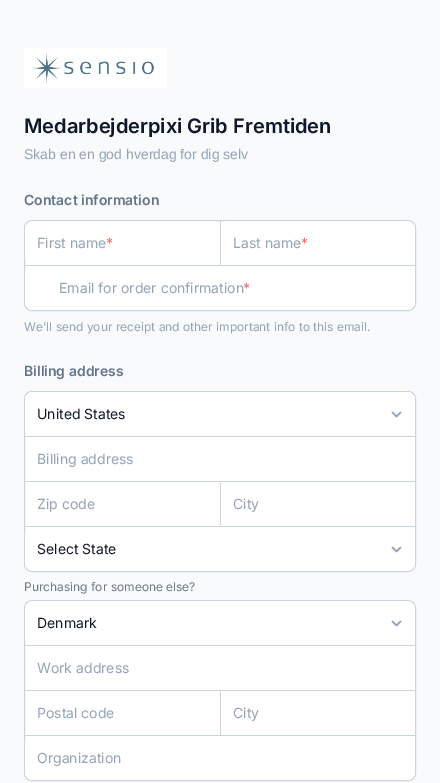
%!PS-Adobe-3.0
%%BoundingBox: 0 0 440 783
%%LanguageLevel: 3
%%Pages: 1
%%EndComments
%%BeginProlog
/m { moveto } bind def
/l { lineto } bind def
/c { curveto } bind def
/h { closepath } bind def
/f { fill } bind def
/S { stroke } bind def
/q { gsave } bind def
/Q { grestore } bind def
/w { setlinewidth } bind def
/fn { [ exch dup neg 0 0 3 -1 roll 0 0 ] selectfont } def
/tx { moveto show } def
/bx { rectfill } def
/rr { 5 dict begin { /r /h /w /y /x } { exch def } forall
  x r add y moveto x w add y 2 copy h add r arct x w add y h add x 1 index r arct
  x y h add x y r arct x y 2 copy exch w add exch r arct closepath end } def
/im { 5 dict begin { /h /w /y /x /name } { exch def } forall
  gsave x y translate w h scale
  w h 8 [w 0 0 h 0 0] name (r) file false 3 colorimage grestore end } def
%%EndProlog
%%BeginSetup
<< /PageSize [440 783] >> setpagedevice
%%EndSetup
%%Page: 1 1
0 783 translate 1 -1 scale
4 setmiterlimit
0.973 0.98 0.988 setrgbcolor
0 0 440 783 bx
(image0.raw) 24 48 143 40 im
/Inter-SemiBold 20 fn
0.059 0.09 0.165 setrgbcolor
(Medarbejderpixi Grib Fremtiden) 24 133 tx
/LiberationSans-Regular 14 fn
0.58 0.639 0.722 setrgbcolor
(Skab en en god hverdag for dig selv) 24 159 tx
/Inter-SemiBold 14 fn
0.392 0.455 0.545 setrgbcolor
(Contact information) 24 205 tx
1 setgray
24.5 220.5 391 90 7.5 rr q f Q
0.796 0.835 0.882 setrgbcolor
S
1 setgray
25 221 195 44 8 rr f
/Inter-Regular 14 fn
0.58 0.639 0.722 setrgbcolor
(First name) 37 248 tx
0.973 0.443 0.443 setrgbcolor
(*) 106 248 tx
0.796 0.835 0.882 setrgbcolor
220 221 1 44 bx
1 setgray
221 221 194 44 8 rr f
0.58 0.639 0.722 setrgbcolor
(Last name) 233 248 tx
0.973 0.443 0.443 setrgbcolor
(*) 301 248 tx
0.796 0.835 0.882 setrgbcolor
25 265 390 1 bx
1 setgray
25 266 390 44 8 rr f
59 266 m 407 266 l 411.5 266 415 269.5 415 274 c 415 302 l 415 306.5 411.5 310 407 310 c 59 310 l h f
0.58 0.639 0.722 setrgbcolor
(Email for order confirmation) 59 293 tx
0.973 0.443 0.443 setrgbcolor
(*) 243 293 tx
/Inter-Regular 12 fn
0.58 0.639 0.722 setrgbcolor
(We'll send your receipt and other important info to this email.) 24 331 tx
/Inter-SemiBold 14 fn
0.392 0.455 0.545 setrgbcolor
(Billing address) 24 376 tx
1 setgray
24.5 391.5 391 180 7.5 rr q f Q
0.796 0.835 0.882 setrgbcolor
S
1 setgray
25 392 390 44 8 rr f
0.58 0.639 0.722 setrgbcolor
1.6 w
1 setlinecap
1 setlinejoin
392.5 412.5 m 396.5 416.5 l 400.5 412.5 l S
/Inter-Regular 14 fn
0.059 0.09 0.165 setrgbcolor
(United States) 37 419 tx
0.796 0.835 0.882 setrgbcolor
25 436 390 1 bx
0.58 0.639 0.722 setrgbcolor
(Billing address) 37 464 tx
0.796 0.835 0.882 setrgbcolor
25 481 390 1 bx
0.58 0.639 0.722 setrgbcolor
(Zip code) 37 509 tx
0.796 0.835 0.882 setrgbcolor
220 482 1 44 bx
0.58 0.639 0.722 setrgbcolor
(City) 233 509 tx
0.796 0.835 0.882 setrgbcolor
25 526 390 1 bx
1 setgray
25 527 390 44 8 rr f
0.58 0.639 0.722 setrgbcolor
392.5 547.5 m 396.5 551.5 l 400.5 547.5 l S
0.059 0.09 0.165 setrgbcolor
(Select State) 37 554 tx
/Inter-Regular 12 fn
0.431 0.475 0.529 setrgbcolor
(Purchasing for someone else?) 24 591 tx
1 setgray
24.5 600.5 391 180 7.5 rr q f Q
0.796 0.835 0.882 setrgbcolor
1 w
0 setlinecap
0 setlinejoin
S
1 setgray
25 601 390 44 8 rr f
0.58 0.639 0.722 setrgbcolor
1.6 w
1 setlinecap
1 setlinejoin
392.5 621.5 m 396.5 625.5 l 400.5 621.5 l S
/Inter-Regular 14 fn
0.059 0.09 0.165 setrgbcolor
(Denmark) 37 628 tx
0.796 0.835 0.882 setrgbcolor
25 645 390 1 bx
0.58 0.639 0.722 setrgbcolor
(Work address) 37 673 tx
0.796 0.835 0.882 setrgbcolor
25 690 390 1 bx
0.58 0.639 0.722 setrgbcolor
(Postal code) 37 718 tx
0.796 0.835 0.882 setrgbcolor
220 691 1 44 bx
0.58 0.639 0.722 setrgbcolor
(City) 233 718 tx
0.796 0.835 0.882 setrgbcolor
25 735 390 1 bx
1 setgray
25 736 390 44 8 rr f
0.58 0.639 0.722 setrgbcolor
(Organization) 37 763 tx
showpage
%%EOF
